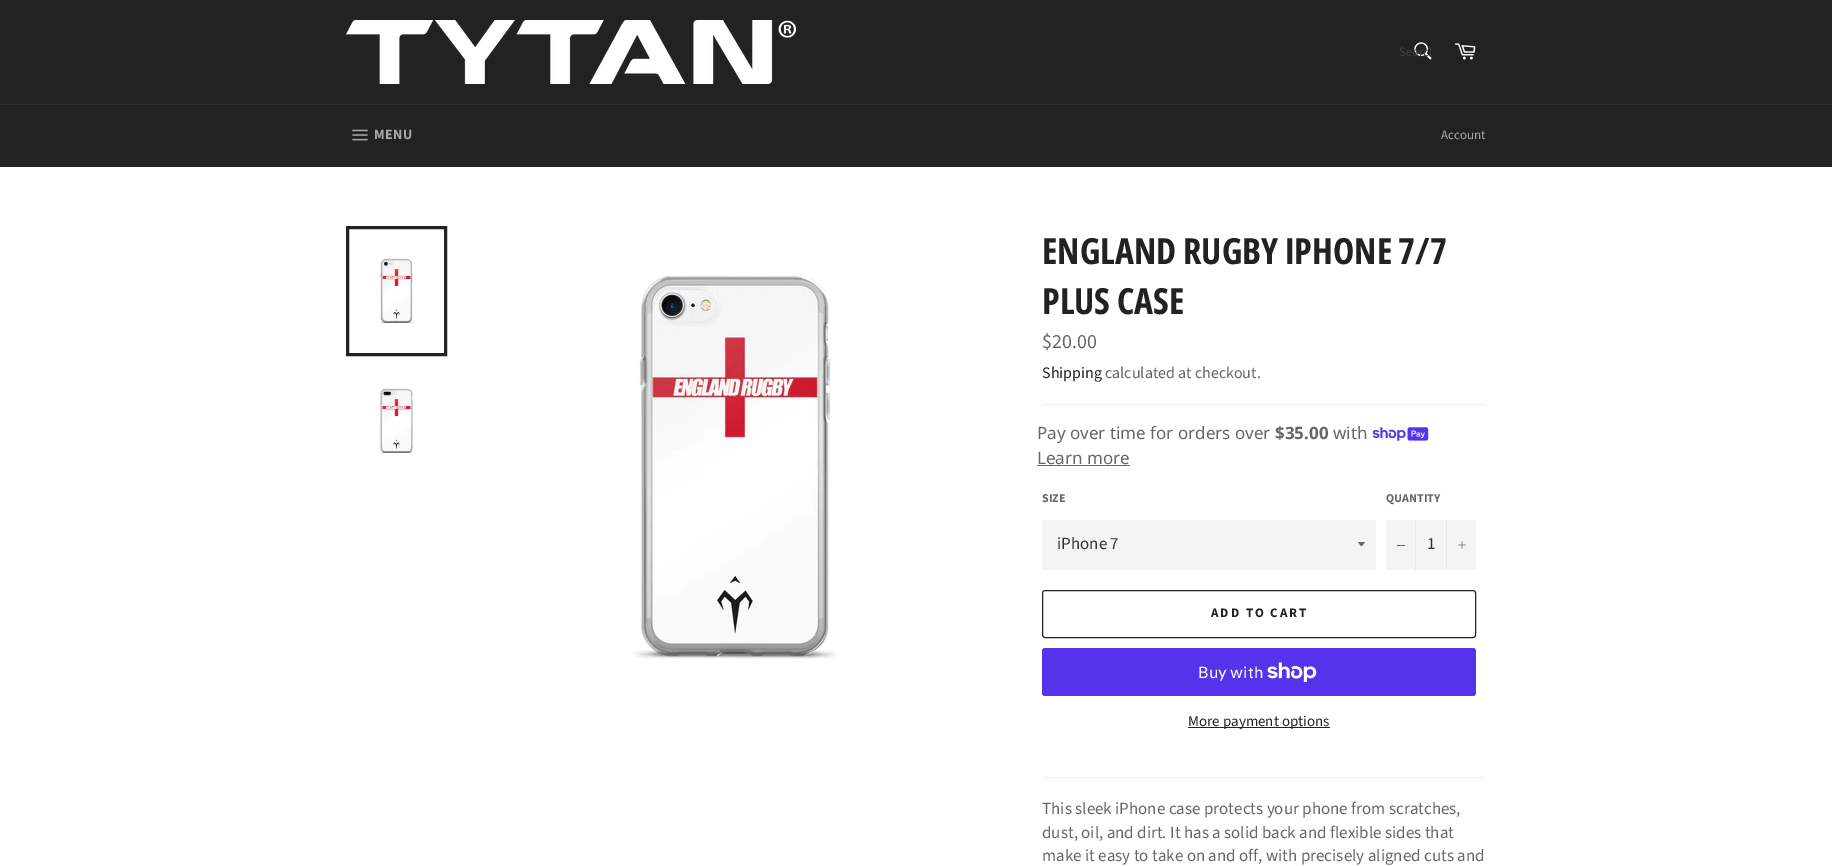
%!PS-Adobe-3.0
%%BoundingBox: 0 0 1832 866
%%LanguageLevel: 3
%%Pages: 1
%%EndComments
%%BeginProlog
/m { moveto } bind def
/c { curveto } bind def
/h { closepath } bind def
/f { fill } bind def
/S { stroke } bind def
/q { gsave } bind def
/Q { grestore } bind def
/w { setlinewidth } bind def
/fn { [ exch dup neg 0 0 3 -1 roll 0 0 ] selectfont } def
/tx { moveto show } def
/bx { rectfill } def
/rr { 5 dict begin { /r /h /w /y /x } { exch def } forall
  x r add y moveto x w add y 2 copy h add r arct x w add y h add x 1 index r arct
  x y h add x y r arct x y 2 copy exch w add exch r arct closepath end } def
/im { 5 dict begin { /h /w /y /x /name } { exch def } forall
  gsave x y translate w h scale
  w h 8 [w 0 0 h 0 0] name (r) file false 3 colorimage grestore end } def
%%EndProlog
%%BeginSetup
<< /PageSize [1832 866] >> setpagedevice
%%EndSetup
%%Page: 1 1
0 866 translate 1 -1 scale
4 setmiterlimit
0.133 setgray
0 0 1832 866 bx
(image0.raw) 346 20 450 64 im
(image1.raw) 1414 42 18 18 im
q
1399 43 32 18 rectclip
/SourceSansPro-Regular 13 fn
0.251 setgray
(Search) 1399 56 tx
Q
(image2.raw) 1454 43 22 17 im
0.184 setgray
0 104 1832 1 bx
(image3.raw) 352 129 16 12 im
/SourceSansPro-Bold 14 fn
0.655 setgray
374 139 m 0.5 0 (MENU) ashow
/SourceSansPro-Regular 13 fn
(Account) 1441 139 tx
1 setgray
0 167 1832 699 bx
(image4.raw) 379 258 35 65 im
0.133 setgray
3 w
347.5 227.5 98 127 rectstroke
(image5.raw) 379 388 35 65 im
(image6.raw) 633 275 204 384 im
/OpenSansCondensed-Bold 36 fn
(ENGLAND RUGBY IPHONE 7/7) 1042 264 tx
(PLUS CASE) 1042 314 tx
/SourceSansPro-Regular 20 fn
0.4 setgray
($20.00) 1042 348 tx
/SourceSansPro-Regular 16 fn
0.133 setgray
(Shipping) 1042 378 tx
0.4 setgray
(calculated at checkout.) 1105 378 tx
0.941 setgray
1042 404 444 1 bx
/NotoSans-Regular 17 fn
0.4 setgray
(Pay over time for orders over) 1037 439 tx
/NotoSans-Bold 17 fn
($35.00) 1275 439 tx
/NotoSans-Regular 17 fn
(with) 1333 439 tx
(image7.raw) 1372 427 57 14 im
(Learn more) 1037 464 tx
1037 465 93 1 bx
/SourceSansPro-Bold 12 fn
(SIZE) 1042 502 tx
0.957 setgray
1042 520 334 50 bx
0.4 setgray
1358 542 m 1362.5 547.5 1360.5 547.5 1365 542 c h f
/SourceSansPro-Regular 17 fn
0.2 setgray
(iPhone 7) 1057 549 tx
/SourceSansPro-Bold 12 fn
0.4 setgray
(QUANTITY) 1386 502 tx
0.957 setgray
1386 520 90 50 bx
0.906 setgray
1415 520 1 50 bx
0.4 setgray
1397 545 8 1 bx
/SourceSansPro-Regular 17 fn
0.2 setgray
(1) 1427 549 tx
0.906 setgray
1446 520 1 50 bx
(image8.raw) 1458 541 8 8 im
0.133 setgray
1 w
1042.5 590.5 433 47 2.5 rr S
/SourceSansPro-Bold 13 fn
1211 617 m 2 0 (ADD TO CART) ashow
0.329 0.2 0.922 setrgbcolor
1042 648 434 48 3 rr f
/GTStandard-Regular 16 fn
1 setgray
(Buy with) 1198 678 tx
(image9.raw) 1267 662 50 20 im
0.133 setgray
1188 727 142 1 bx
/SourceSansPro-Regular 15 fn
(More payment options) 1188 726 tx
0.941 setgray
1042 777 444 1 bx
/SourceSansPro-Regular 17 fn
0.4 setgray
(This sleek iPhone case protects your phone from scratches,) 1042 814 tx
(dust, oil, and dirt. It has a solid back and flexible sides that) 1042 838 tx
(make it easy to take on and off, with precisely aligned cuts and) 1042 861 tx
showpage
%%EOF
